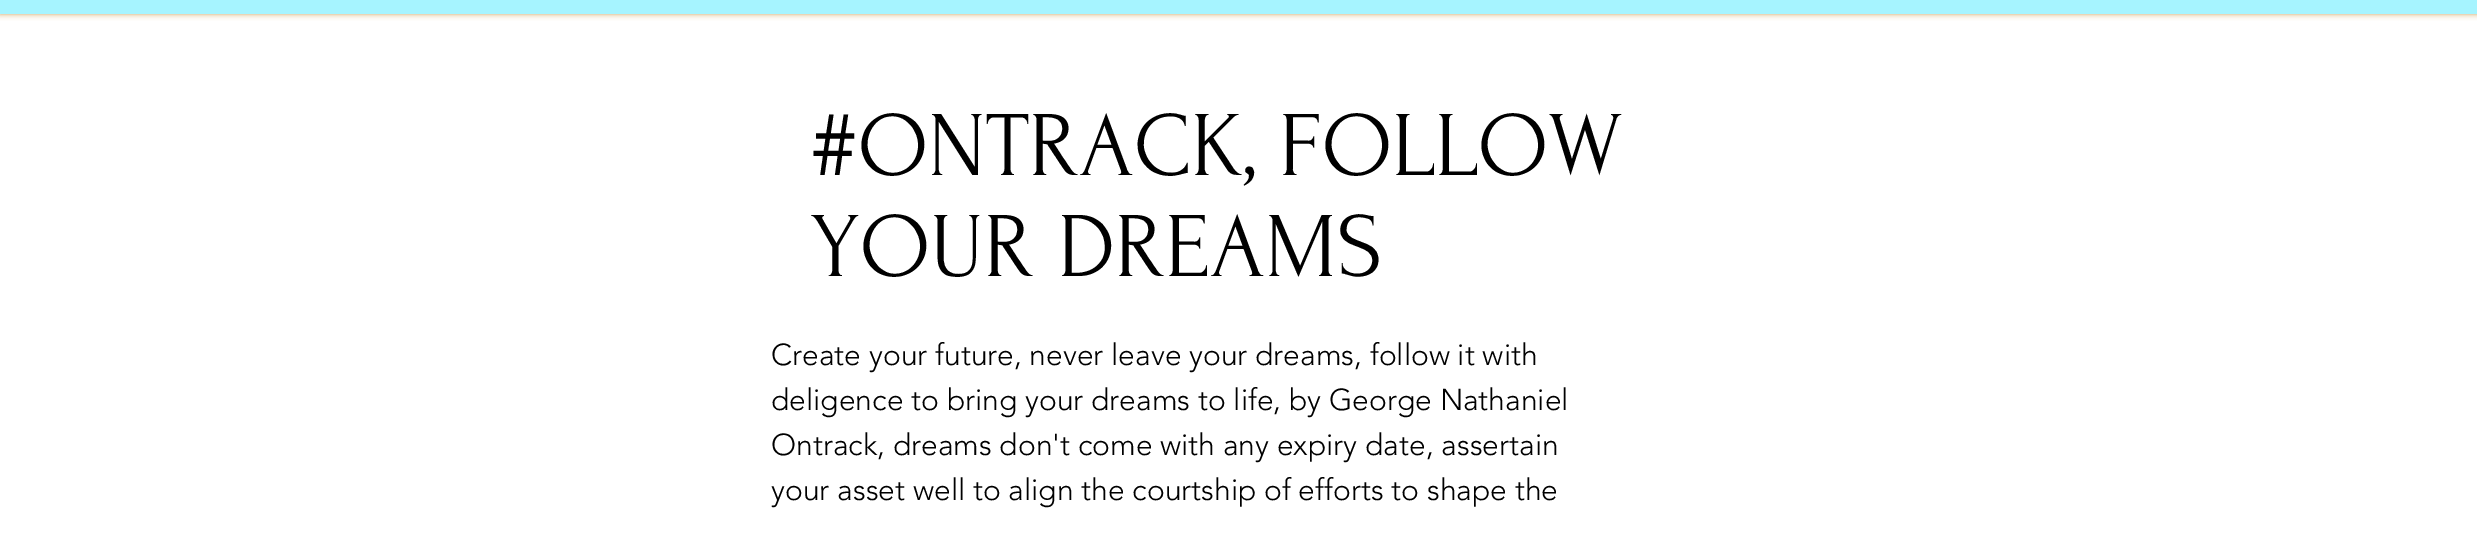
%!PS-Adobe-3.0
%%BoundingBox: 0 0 2477 539
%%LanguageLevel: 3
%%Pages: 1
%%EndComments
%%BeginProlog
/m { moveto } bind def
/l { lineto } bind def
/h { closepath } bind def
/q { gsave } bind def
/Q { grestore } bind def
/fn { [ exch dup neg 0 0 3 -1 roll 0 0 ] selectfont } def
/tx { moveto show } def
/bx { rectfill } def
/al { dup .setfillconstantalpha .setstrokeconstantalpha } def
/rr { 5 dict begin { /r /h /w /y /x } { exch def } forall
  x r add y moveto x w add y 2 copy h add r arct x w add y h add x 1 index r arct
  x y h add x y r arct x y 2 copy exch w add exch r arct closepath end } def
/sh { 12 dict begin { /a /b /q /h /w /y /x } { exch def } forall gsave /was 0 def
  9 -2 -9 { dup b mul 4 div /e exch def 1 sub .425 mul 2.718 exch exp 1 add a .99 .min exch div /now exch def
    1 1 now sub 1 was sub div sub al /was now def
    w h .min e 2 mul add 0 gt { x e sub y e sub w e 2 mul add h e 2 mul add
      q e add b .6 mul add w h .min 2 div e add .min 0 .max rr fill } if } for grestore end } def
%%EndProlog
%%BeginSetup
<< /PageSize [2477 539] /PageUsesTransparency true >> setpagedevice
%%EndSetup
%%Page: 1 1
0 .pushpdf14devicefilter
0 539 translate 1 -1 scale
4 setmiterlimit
1 setgray
0 0 2477 539 bx
q
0 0 m 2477 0 l 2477 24 l 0 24 l h 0 -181 m 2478 -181 l 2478 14 l 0 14 l h eoclip newpath
0.733 0.478 0.059 setrgbcolor
0 -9 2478 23 0 3 0.7 sh
Q
0.6 al
0.42 0.925 1 setrgbcolor
0 0 2477 14 bx
/Forum-Regular 92.5 fn
1 al
0 setgray
(#ONTRACK, FOLLOW) 811 175 tx
(YOUR DREAMS) 811 276 tx
/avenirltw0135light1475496-Light 30 fn
(Create your future, never leave your dreams, follow it with) 771 365 tx
(deligence to bring your dreams to life, by George Nathaniel) 771 410 tx
(Ontrack, dreams don't come with any expiry date, assertain) 771 455 tx
(your asset well to align the courtship of efforts to shape the) 771 500 tx
.poppdf14devicefilter showpage
%%EOF
